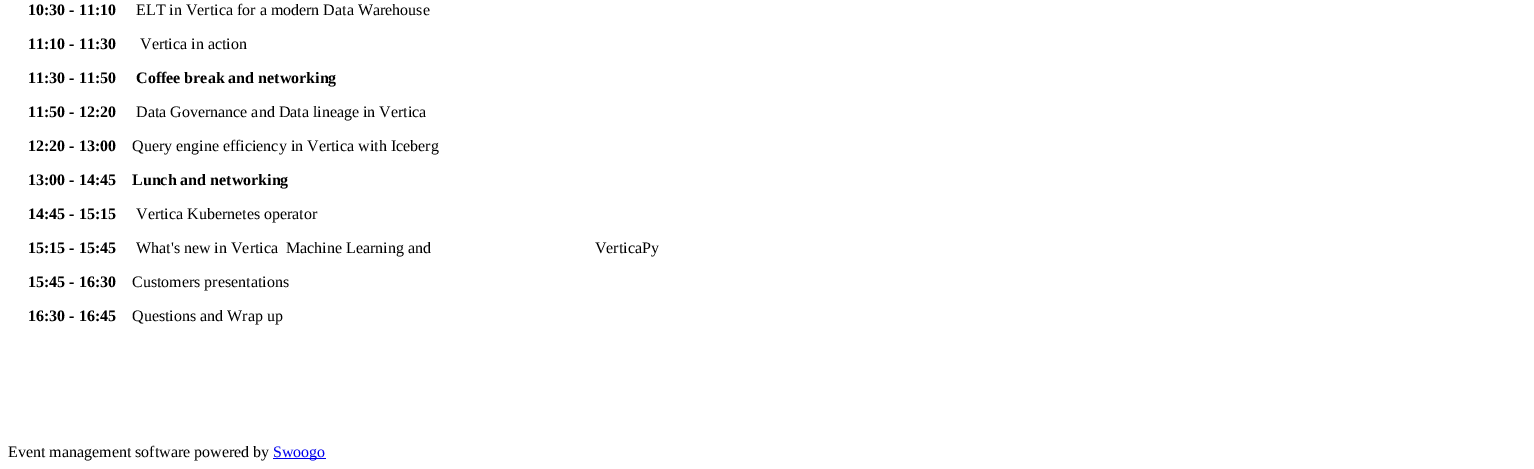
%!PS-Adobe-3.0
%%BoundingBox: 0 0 1534 469
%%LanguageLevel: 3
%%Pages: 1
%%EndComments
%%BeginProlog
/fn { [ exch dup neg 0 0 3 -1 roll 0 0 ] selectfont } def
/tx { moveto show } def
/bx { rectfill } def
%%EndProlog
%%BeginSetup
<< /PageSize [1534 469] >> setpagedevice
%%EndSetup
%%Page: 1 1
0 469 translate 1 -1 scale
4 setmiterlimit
1 setgray
0 0 1534 469 bx
/LiberationSerif-Bold 16 fn
0 setgray
(10:30 - 11:10) 28 15 tx
/LiberationSerif-Regular 16 fn
(ELT in Vertica for a modern Data Warehouse) 136 15 tx
/LiberationSerif-Bold 16 fn
(11:10 - 11:30) 28 49 tx
/LiberationSerif-Regular 16 fn
(Vertica in action) 140 49 tx
/LiberationSerif-Bold 16 fn
(11:30 - 11:50) 28 83 tx
(Coffee break and networking) 136 83 tx
(11:50 - 12:20) 28 117 tx
/LiberationSerif-Regular 16 fn
(Data Governance and Data lineage in Vertica) 136 117 tx
/LiberationSerif-Bold 16 fn
(12:20 - 13:00) 28 151 tx
/LiberationSerif-Regular 16 fn
(Query engine efficiency in Vertica with Iceberg) 132 151 tx
/LiberationSerif-Bold 16 fn
(13:00 - 14:45    Lunch and networking) 28 185 tx
(14:45 - 15:15) 28 219 tx
/LiberationSerif-Regular 16 fn
(Vertica Kubernetes operator) 136 219 tx
/LiberationSerif-Bold 16 fn
(15:15 - 15:45) 28 253 tx
/LiberationSerif-Regular 16 fn
(What's new in Vertica  Machine Learning and                                         VerticaPy) 136 253 tx
/LiberationSerif-Bold 16 fn
(15:45 - 16:30) 28 287 tx
/LiberationSerif-Regular 16 fn
(Customers presentations) 132 287 tx
/LiberationSerif-Bold 16 fn
(16:30 - 16:45) 28 321 tx
/LiberationSerif-Regular 16 fn
(Questions and Wrap up) 132 321 tx
(Event management software powered by) 8 457 tx
0 0 0.933 setrgbcolor
273 458 53 1 bx
(Swoogo) 273 457 tx
showpage
%%EOF
